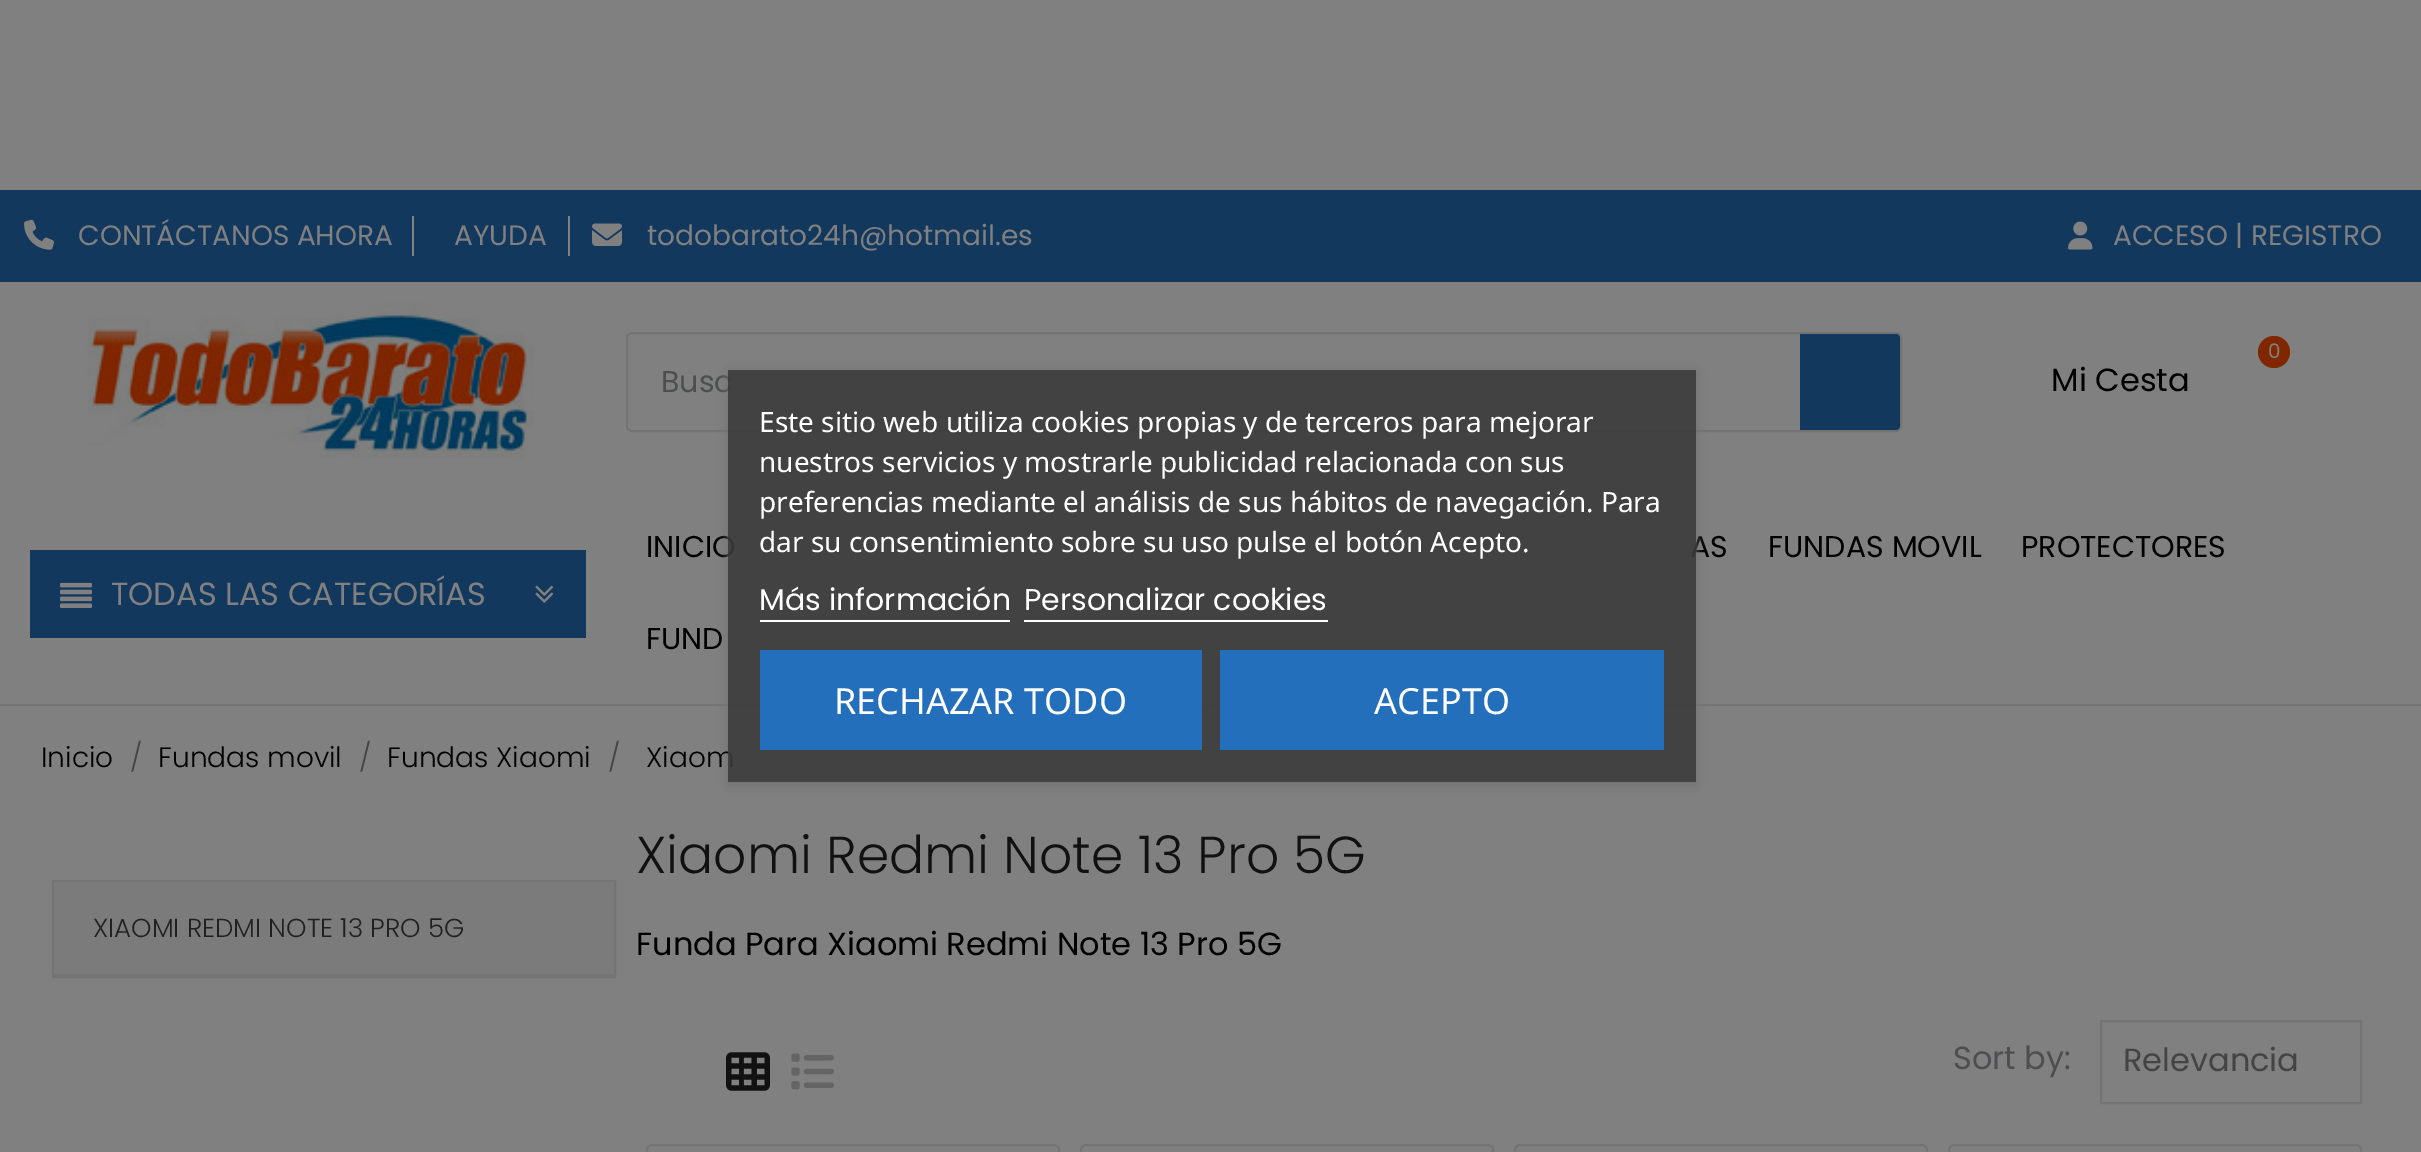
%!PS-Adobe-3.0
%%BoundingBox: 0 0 2421 1152
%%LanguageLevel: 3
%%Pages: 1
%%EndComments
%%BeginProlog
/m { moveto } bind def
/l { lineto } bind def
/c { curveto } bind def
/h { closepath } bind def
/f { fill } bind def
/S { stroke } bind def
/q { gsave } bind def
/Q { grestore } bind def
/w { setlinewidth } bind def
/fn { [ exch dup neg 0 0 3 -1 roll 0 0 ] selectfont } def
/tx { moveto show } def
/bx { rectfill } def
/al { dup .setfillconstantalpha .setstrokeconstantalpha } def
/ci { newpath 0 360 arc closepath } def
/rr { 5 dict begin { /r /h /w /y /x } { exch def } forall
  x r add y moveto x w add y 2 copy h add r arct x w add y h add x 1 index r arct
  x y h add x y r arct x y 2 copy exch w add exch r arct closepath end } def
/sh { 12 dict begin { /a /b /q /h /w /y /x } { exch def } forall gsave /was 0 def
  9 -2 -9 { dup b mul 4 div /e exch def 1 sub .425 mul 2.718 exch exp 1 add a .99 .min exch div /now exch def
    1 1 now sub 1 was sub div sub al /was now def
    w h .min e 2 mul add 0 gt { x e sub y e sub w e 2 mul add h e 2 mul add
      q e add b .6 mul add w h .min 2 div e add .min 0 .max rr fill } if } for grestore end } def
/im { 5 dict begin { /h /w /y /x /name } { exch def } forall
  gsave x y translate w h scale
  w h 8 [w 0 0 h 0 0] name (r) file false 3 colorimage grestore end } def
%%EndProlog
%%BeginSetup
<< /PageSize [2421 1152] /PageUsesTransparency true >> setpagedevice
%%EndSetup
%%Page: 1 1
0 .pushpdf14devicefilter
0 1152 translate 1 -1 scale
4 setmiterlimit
0.502 setgray
0 0 2421 1152 bx
0.071 0.22 0.369 setrgbcolor
0 190 2421 92 bx
(image0.raw) 24 219 30 31 im
/Poppins-Regular 28 fn
0.502 setgray
(CONTÁCTANOS AHORA) 78 245 tx
412 216 2 40 bx
(AYUDA) 454 245 tx
568 216 2 40 bx
(image1.raw) 592 223 30 23 im
(todobarato24h@hotmail.es) 647 245 tx
(image2.raw) 2068 221 25 29 im
(ACCESO | REGISTRO) 2113 245 tx
(image3.raw) 87 302 447 157 im
0.451 setgray
2 w
627 333 1274 98 5 rr S
/Poppins-Regular 30 fn
0.302 0.306 0.31 setrgbcolor
(Busc) 661 392 tx
0.071 0.22 0.369 setrgbcolor
1800 334 m 1896 334 l 1898 334 1900 336 1900 338 c 1900 426 l 1900 428 1898 430 1896 430 c 1800 430 l h f
0.502 0.153 0 setrgbcolor
2274 352 16 ci f
/Poppins-Regular 20 fn
0.502 setgray
(0) 2268 358 tx
/Poppins-Regular 32 fn
0 setgray
(Mi Cesta) 2051 391 tx
0.071 0.22 0.369 setrgbcolor
30 550 556 88 bx
(image4.raw) 60 582 32 26 im
0.502 setgray
(TODAS LAS CATEGORÍAS) 111 605 tx
(image5.raw) 535 585 19 18 im
/Poppins-Regular 30 fn
0 setgray
(INICIO) 646 557 tx
(AS) 1690 557 tx
(FUNDAS MOVIL) 1768 557 tx
(PROTECTORES) 2021 557 tx
(FUND) 646 649 tx
0.455 setgray
0 704 2421 2 bx
q
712 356 m 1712 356 l 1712 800 l 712 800 l h 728 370 m 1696 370 l 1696 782 l 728 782 l h eoclip newpath
0.439 setgray
728 372 968 412 0 5 1 sh
Q
/Poppins-Light 28 fn
0 setgray
(Xiaom) 646 767 tx
0.9 al
0.231 setgray
728 370 968 412 bx
/NotoSans-Regular 28 fn
1 al
1 setgray
(Este sitio web utiliza cookies propias y de terceros para mejorar) 759 432 tx
(nuestros servicios y mostrarle publicidad relacionada con sus) 759 472 tx
(preferencias mediante el análisis de sus hábitos de navegación. Para) 759 512 tx
(dar su consentimiento sobre su uso pulse el botón Acepto.) 759 552 tx
/Poppins-Regular 30 fn
(Más información) 759 610 tx
760 620 250 2 bx
(Personalizar cookies) 1024 610 tx
1024 620 304 2 bx
0.137 0.435 0.733 setrgbcolor
760 650 442 100 bx
/NotoSans-Regular 36 fn
1 setgray
(RECHAZAR TODO) 834 714 tx
0.137 0.435 0.733 setrgbcolor
1220 650 444 100 bx
1 setgray
(ACEPTO) 1374 714 tx
/Poppins-Light 28 fn
0 setgray
(Inicio) 41 767 tx
0.267 setgray
(/) 130 767 tx
0 setgray
(Fundas movil) 158 767 tx
0.267 setgray
(/) 359 767 tx
0 setgray
(Fundas Xiaomi) 387 767 tx
0.267 setgray
(/) 608 767 tx
0.455 setgray
53 881 562 96 rectstroke
0.482 setgray
54 882 560 92 bx
0.455 setgray
54 974 560 2 bx
/Poppins-Light 26 fn
0.129 setgray
(XIAOMI REDMI NOTE 13 PRO 5G) 93 937 tx
/Poppins-Light 52 fn
0.067 setgray
(Xiaomi Redmi Note 13 Pro 5G) 636 873 tx
/Poppins-Regular 32 fn
0 setgray
(Funda Para Xiaomi Redmi Note 13 Pro 5G) 636 955 tx
(image6.raw) 726 1052 44 39 im
(image7.raw) 791 1053 43 37 im
0.302 0.306 0.31 setrgbcolor
(Sort by:) 1953 1069 tx
0.455 setgray
2101 1021 260 82 rectstroke
0.267 setgray
(Relevancia) 2123 1071 tx
0.455 setgray
647 1145 412 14 5 rr S
1081 1145 412 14 5 rr S
1515 1145 412 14 5 rr S
1949 1145 412 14 5 rr S
.poppdf14devicefilter showpage
%%EOF
